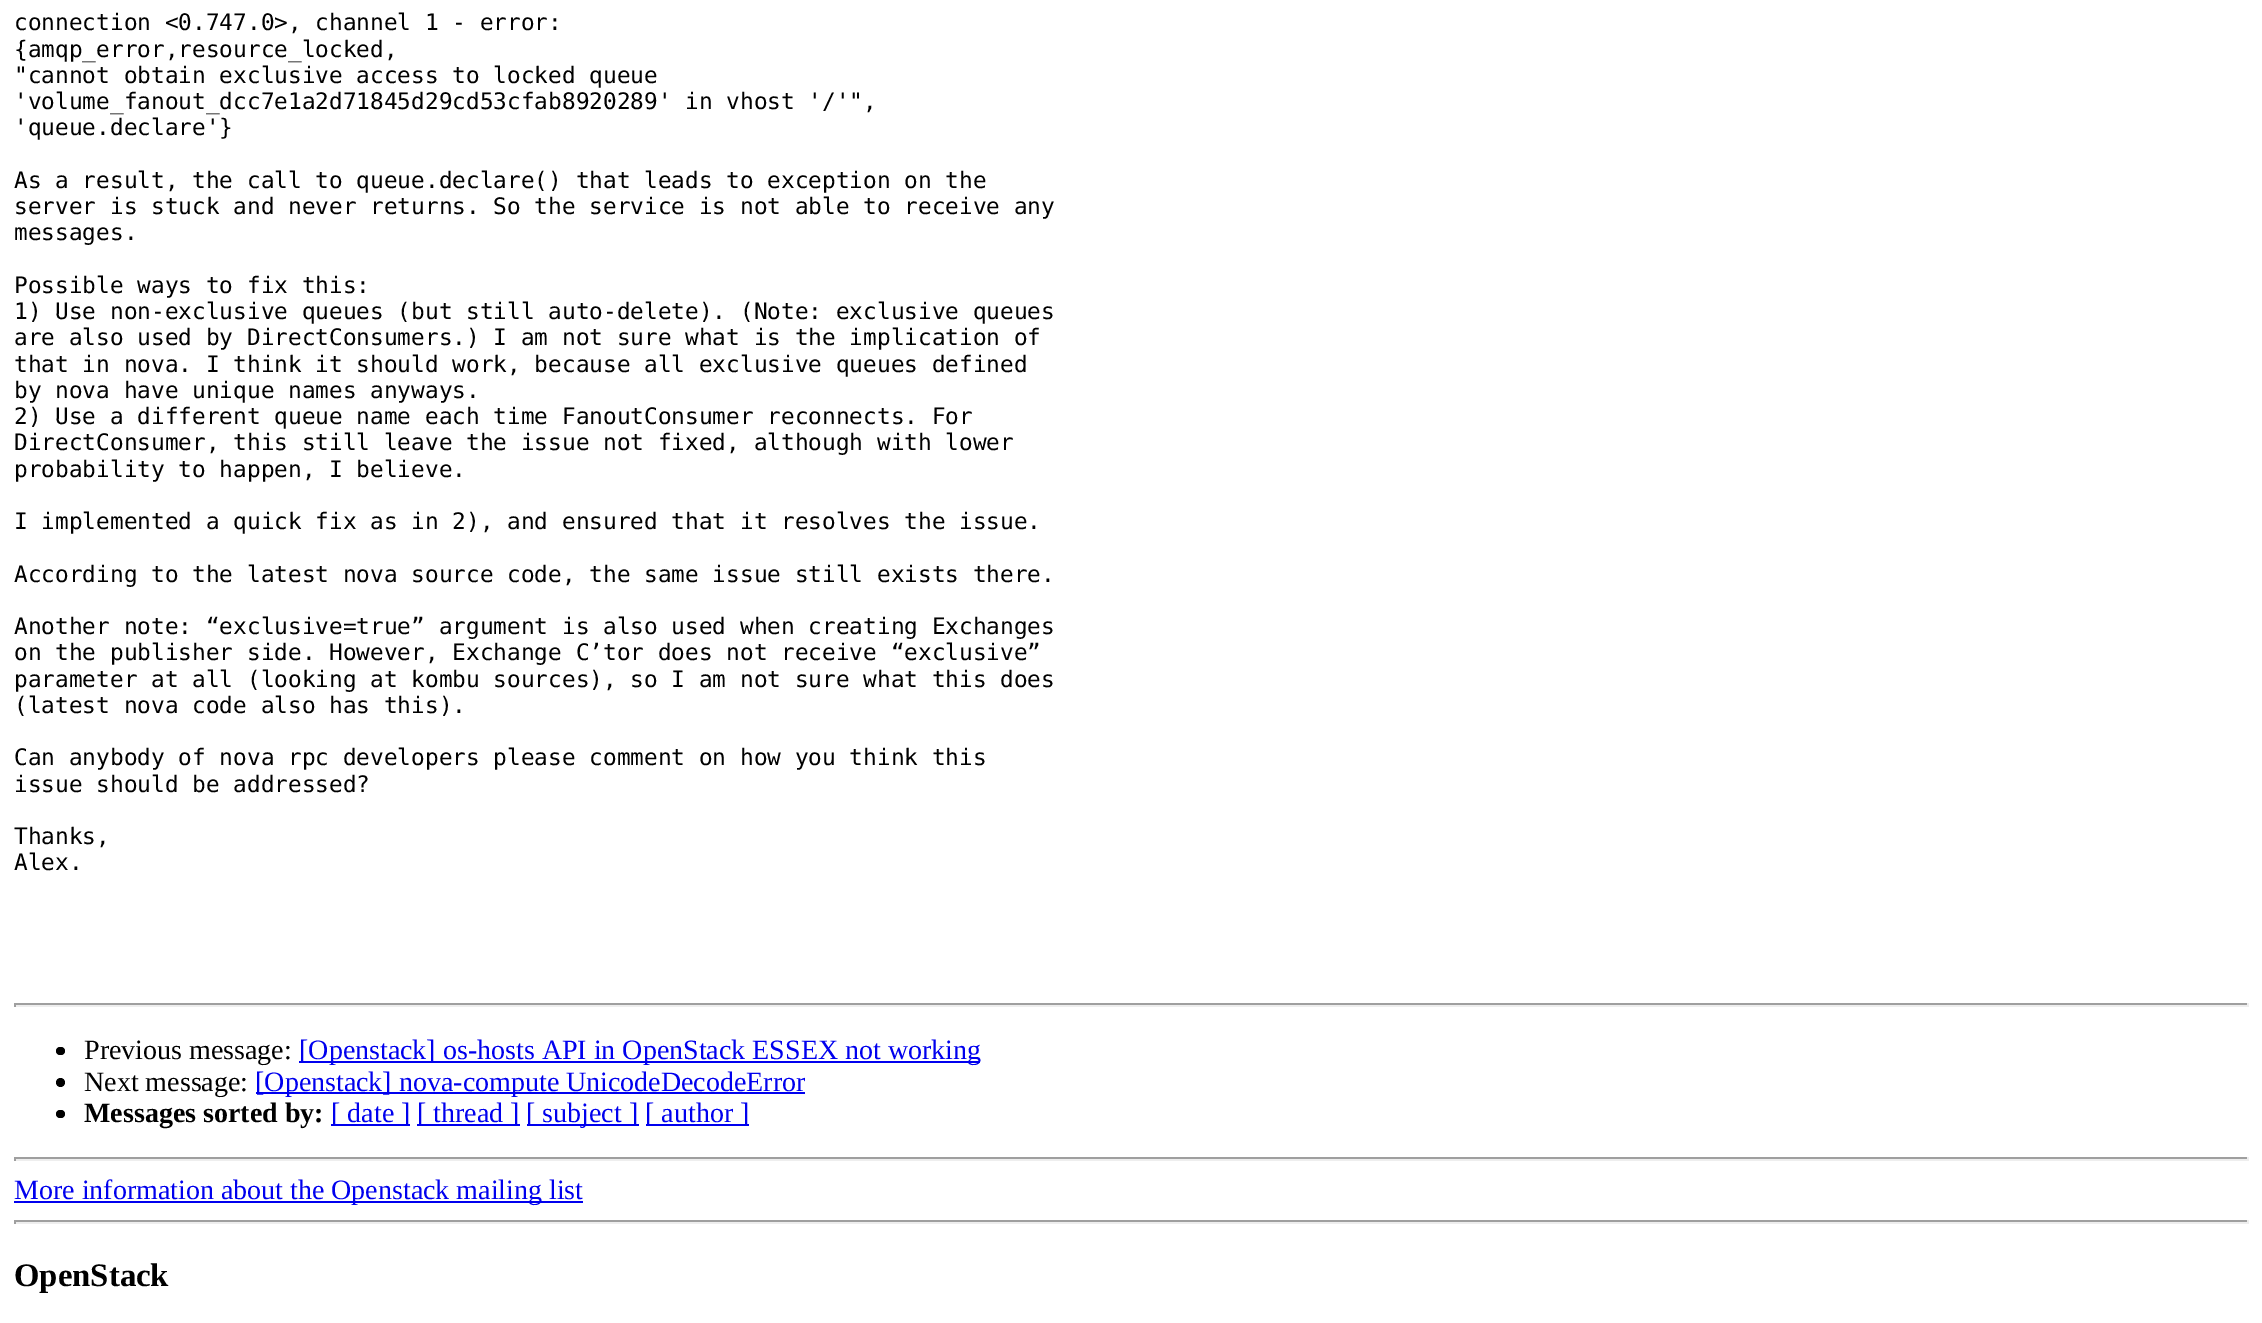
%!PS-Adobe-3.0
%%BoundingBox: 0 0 2262 1323
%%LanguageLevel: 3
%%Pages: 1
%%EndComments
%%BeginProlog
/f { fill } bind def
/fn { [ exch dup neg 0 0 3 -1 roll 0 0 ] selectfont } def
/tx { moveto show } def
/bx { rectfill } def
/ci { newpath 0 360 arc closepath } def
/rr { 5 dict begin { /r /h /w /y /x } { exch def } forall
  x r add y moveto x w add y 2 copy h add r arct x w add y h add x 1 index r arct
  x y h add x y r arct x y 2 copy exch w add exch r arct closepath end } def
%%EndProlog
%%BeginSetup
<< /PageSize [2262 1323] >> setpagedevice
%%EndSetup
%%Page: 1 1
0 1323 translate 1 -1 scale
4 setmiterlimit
1 setgray
0 0 2262 1323 bx
/DejaVuSansMono-Regular 22.75 fn
0 setgray
(connection <0.747.0>, channel 1 - error:) 14 30 tx
({amqp_error,resource_locked,) 14 57 tx
("cannot obtain exclusive access to locked queue) 14 83 tx
('volume_fanout_dcc7e1a2d71845d29cd53cfab8920289' in vhost '/'",) 14 109 tx
('queue.declare'}) 14 135 tx
(As a result, the call to queue.declare\(\) that leads to exception on the) 14 188 tx
(server is stuck and never returns. So the service is not able to receive any) 14 214 tx
(messages.) 14 240 tx
(Possible ways to fix this:) 14 293 tx
(1\) Use non-exclusive queues \(but still auto-delete\). \(Note: exclusive queues) 14 319 tx
(are also used by DirectConsumers.\) I am not sure what is the implication of) 14 345 tx
(that in nova. I think it should work, because all exclusive queues defined) 14 372 tx
(by nova have unique names anyways.) 14 398 tx
(2\) Use a different queue name each time FanoutConsumer reconnects. For) 14 424 tx
(DirectConsumer, this still leave the issue not fixed, although with lower) 14 450 tx
(probability to happen, I believe.) 14 477 tx
(I implemented a quick fix as in 2\), and ensured that it resolves the issue.) 14 529 tx
(According to the latest nova source code, the same issue still exists there.) 14 582 tx
(Another note: “exclusive=true” argument is also used when creating Exchanges) 14 634 tx
(on the publisher side. However, Exchange C’tor does not receive “exclusive”) 14 660 tx
(parameter at all \(looking at kombu sources\), so I am not sure what this does) 14 687 tx
(\(latest nova code also has this\).) 14 713 tx
(Can anybody of nova rpc developers please comment on how you think this) 14 765 tx
(issue should be addressed?) 14 792 tx
(Thanks,) 14 844 tx
(Alex.) 14 870 tx
0.624 setgray
14 1003 2235 2 bx
0.933 setgray
2247 1003 2 4 bx
14 1005 2235 2 bx
0.624 setgray
14 1003 2 4 bx
0 setgray
56 1047 9 8 4 rr f
/LiberationSerif-Regular 28 fn
(Previous message:) 84 1059 tx
0 0 0.933 setrgbcolor
299 1061 681 2 bx
([Openstack] os-hosts API in OpenStack ESSEX not working) 299 1059 tx
0 setgray
60.5 1082.5 4.5 ci f
(Next message:) 84 1091 tx
0 0 0.933 setrgbcolor
256 1092 549 2 bx
([Openstack] nova-compute UnicodeDecodeError) 255 1091 tx
0 setgray
56 1110 9 8 4 rr f
/LiberationSerif-Bold 28 fn
(Messages sorted by:) 84 1122 tx
0 0 0.933 setrgbcolor
331 1124 79 2 bx
/LiberationSerif-Regular 28 fn
([ date ]) 331 1122 tx
417 1124 103 2 bx
([ thread ]) 417 1122 tx
527 1124 112 2 bx
([ subject ]) 526 1122 tx
646 1124 103 2 bx
([ author ]) 645 1122 tx
0.624 setgray
14 1157 2235 2 bx
0.933 setgray
2247 1157 2 4 bx
14 1159 2235 2 bx
0.624 setgray
14 1157 2 4 bx
0 0 0.933 setrgbcolor
14 1201 569 2 bx
(More information about the Openstack mailing list) 14 1199 tx
0.624 setgray
14 1220 2235 2 bx
0.933 setgray
2247 1220 2 4 bx
14 1222 2235 2 bx
0.624 setgray
14 1220 2 4 bx
/LiberationSerif-Bold 32.75 fn
0 setgray
(OpenStack) 14 1286 tx
showpage
%%EOF
